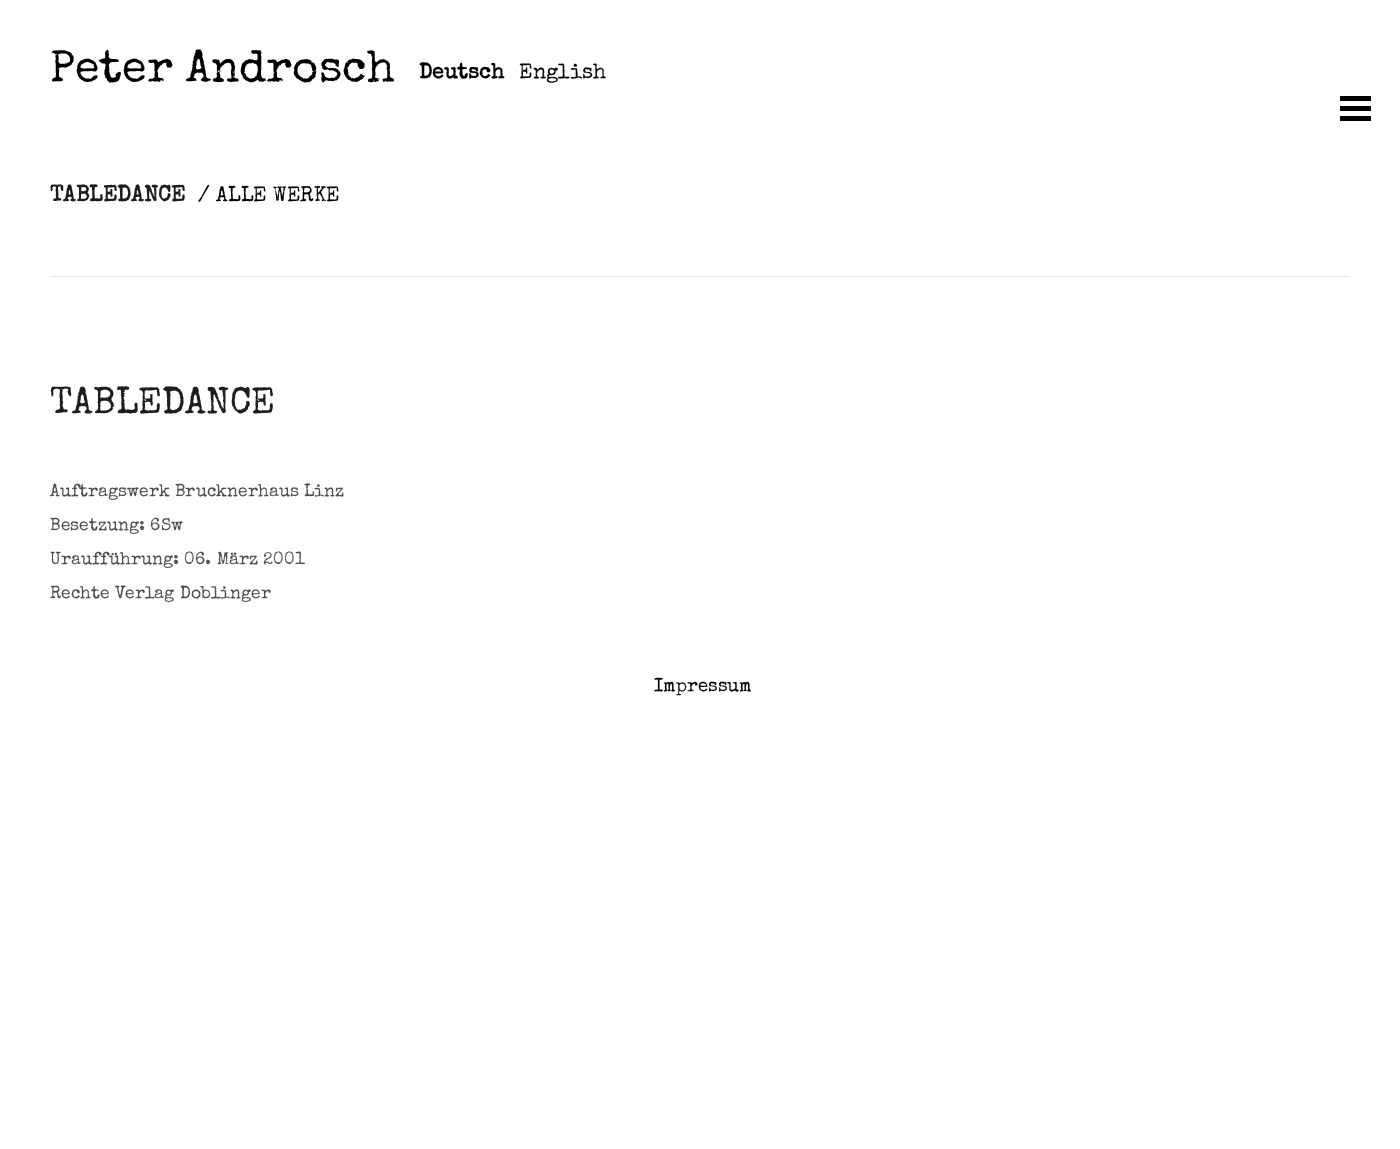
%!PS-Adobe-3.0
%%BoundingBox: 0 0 1400 1149
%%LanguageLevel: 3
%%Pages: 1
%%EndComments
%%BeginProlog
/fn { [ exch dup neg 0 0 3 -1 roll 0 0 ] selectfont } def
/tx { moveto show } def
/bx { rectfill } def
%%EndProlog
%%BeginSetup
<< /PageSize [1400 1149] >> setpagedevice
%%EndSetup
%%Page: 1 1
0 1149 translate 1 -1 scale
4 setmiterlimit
1 setgray
0 0 1400 1149 bx
/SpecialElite-Regular 45 fn
0 setgray
(Peter Androsch) 50 81 tx
/SpecialElite-Bold 21.25 fn
(Deutsch) 419 78 tx
/SpecialElite-Regular 21.25 fn
(English) 519 78 tx
1340 96 31 5 bx
1340 106 31 5 bx
1340 116 31 5 bx
0.898 setgray
50 276 1300 1 bx
/SpecialElite-Bold 22.5 fn
0.114 setgray
(TABLEDANCE) 50 201 tx
/SpecialElite-Regular 21.25 fn
0 setgray
(/ ALLE WERKE) 198 201 tx
/SpecialElite-Regular 37.5 fn
0.114 setgray
(TABLEDANCE) 50 413 tx
/SpecialElite-Regular 17.5 fn
0.298 setgray
(Auftragswerk Brucknerhaus Linz) 50 496 tx
(Besetzung: 6Sw) 50 530 tx
(Uraufführung: 06. März 2001) 50 564 tx
(Rechte Verlag Doblinger) 50 598 tx
/SpecialElite-Regular 18.75 fn
0 setgray
(Impressum) 654 691 tx
showpage
%%EOF
